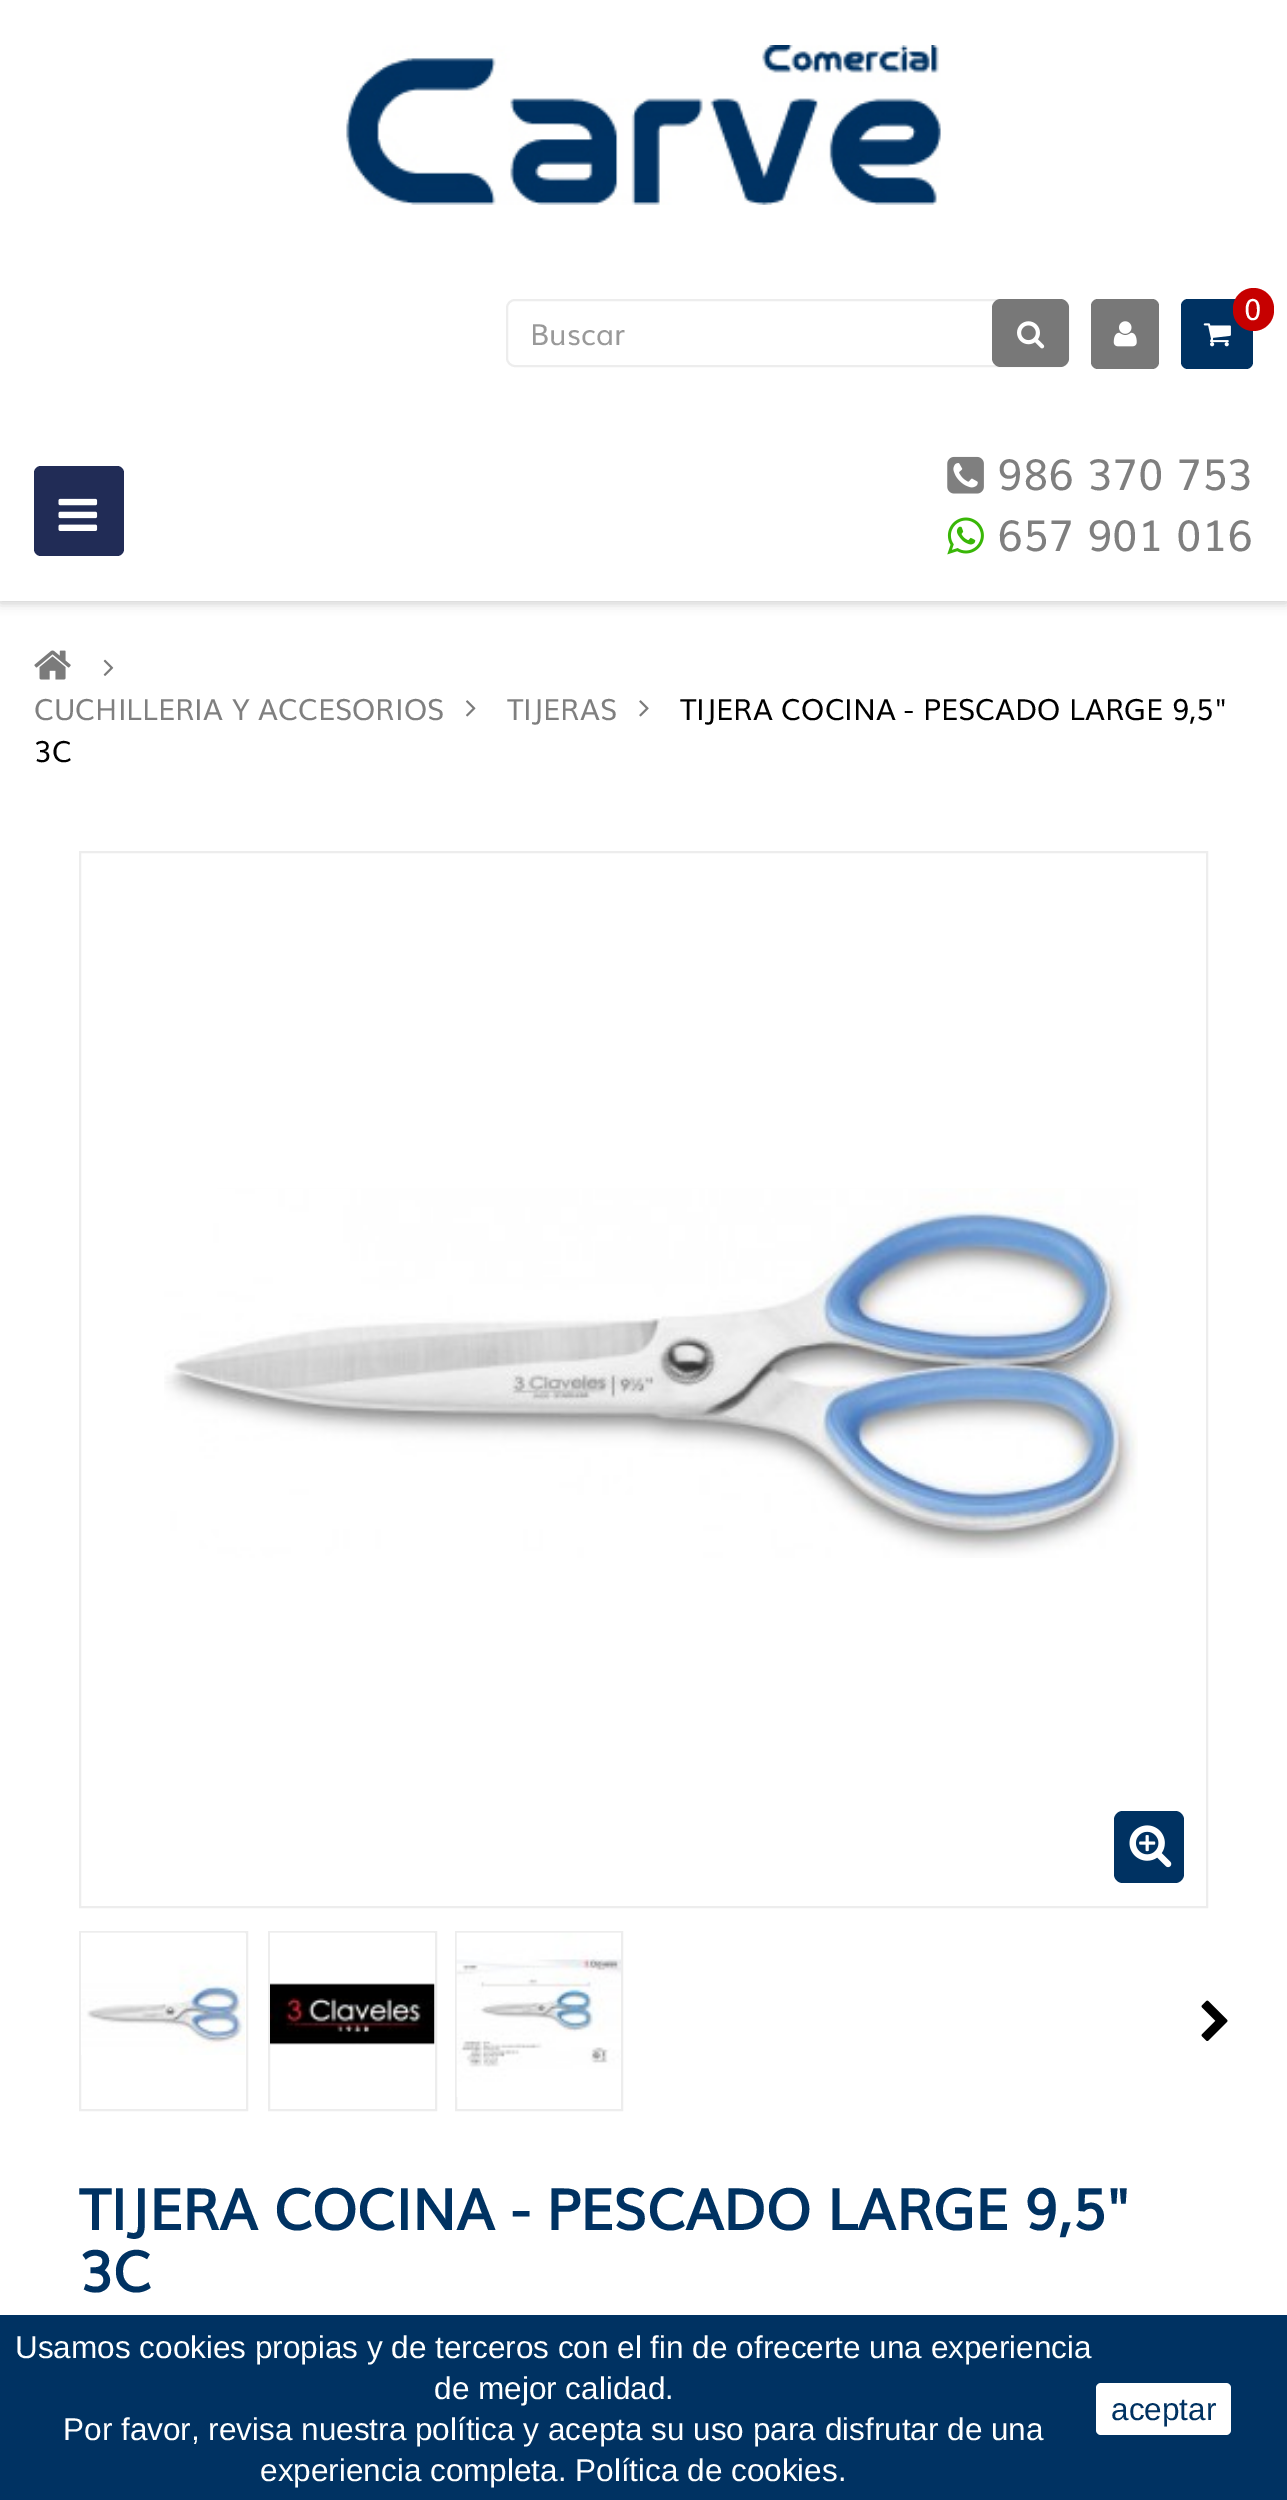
%!PS-Adobe-3.0
%%BoundingBox: 0 0 1287 2500
%%LanguageLevel: 3
%%Pages: 1
%%EndComments
%%BeginProlog
/f { fill } bind def
/S { stroke } bind def
/w { setlinewidth } bind def
/fn { [ exch dup neg 0 0 3 -1 roll 0 0 ] selectfont } def
/tx { moveto show } def
/bx { rectfill } def
/al { dup .setfillconstantalpha .setstrokeconstantalpha } def
/rr { 5 dict begin { /r /h /w /y /x } { exch def } forall
  x r add y moveto x w add y 2 copy h add r arct x w add y h add x 1 index r arct
  x y h add x y r arct x y 2 copy exch w add exch r arct closepath end } def
/sh { 12 dict begin { /a /b /q /h /w /y /x } { exch def } forall gsave /was 0 def
  9 -2 -9 { dup b mul 4 div /e exch def 1 sub .425 mul 2.718 exch exp 1 add a .99 .min exch div /now exch def
    1 1 now sub 1 was sub div sub al /was now def
    w h .min e 2 mul add 0 gt { x e sub y e sub w e 2 mul add h e 2 mul add
      q e add b .6 mul add w h .min 2 div e add .min 0 .max rr fill } if } for grestore end } def
/im { 5 dict begin { /h /w /y /x /name } { exch def } forall
  gsave x y translate w h scale
  w h 8 [w 0 0 h 0 0] name (r) file false 3 colorimage grestore end } def
%%EndProlog
%%BeginSetup
<< /PageSize [1287 2500] /PageUsesTransparency true >> setpagedevice
%%EndSetup
%%Page: 1 1
0 .pushpdf14devicefilter
0 2500 translate 1 -1 scale
4 setmiterlimit
1 setgray
0 0 1287 2500 bx
0 setgray
0 2 1287 601 0 5.5 0.2 sh
1 setgray
0 0 1287 601 bx
(image0.raw) 346 45 595 160 im
0.929 setgray
2 w
507 300 561 66 8 rr S
/Muli-Regular 29.25 fn
0.6 setgray
(Buscar) 530 345 tx
0.471 setgray
992 299 77 68 9 rr f
(image1.raw) 1017 321 28 28 im
1091 299 68 70 7 rr f
(image2.raw) 1113 321 24 26 im
0 0.196 0.384 setrgbcolor
1181 299 72 70 7 rr f
0.776 0 0 setrgbcolor
1233 288 41 43 20.5 rr f
1 setgray
(0) 1244 320 tx
(image3.raw) 1203 323 28 24 im
0.129 0.173 0.337 setrgbcolor
34 466 90 90 7 rr f
(image4.raw) 58 498 40 33 im
(image5.raw) 947 456 37 38 im
/Muli-Regular 42.75 fn
0.498 setgray
(986 370 753) 997 490 tx
(image6.raw) 947 517 37 38 im
(657 901 016) 997 551 tx
(image7.raw) 34 650 37 30 im
(image8.raw) 103 659 11 17 im
/Muli-Regular 29.25 fn
(CUCHILLERIA Y ACCESORIOS) 34 720 tx
(image9.raw) 466 700 10 17 im
(TIJERAS) 507 720 tx
(image10.raw) 639 700 10 17 im
0 setgray
(TIJERA COCINA - PESCADO LARGE 9,5") 680 720 tx
(3C) 34 762 tx
0.929 setgray
80 852 1127 1055 rectstroke
(image11.raw) 164 1188 974 370 im
0 0.196 0.384 setrgbcolor
1114 1811 70 72 9 rr f
(image12.raw) 1129 1825 43 43 im
0.929 setgray
80 1932 167 178 rectstroke
(image13.raw) 81 1932 164 123 im
269 1932 167 178 rectstroke
(image14.raw) 270 1932 165 113 im
456 1932 166 178 rectstroke
(image15.raw) 456 1932 165 165 im
(image16.raw) 1201 2000 27 41 im
/Muli-Bold 56.25 fn
0 0.196 0.384 setrgbcolor
(TIJERA COCINA - PESCADO LARGE 9,5") 79 2230 tx
(3C) 79 2292 tx
0 2315 1287 185 bx
/LiberationSans-Regular 31.5 fn
1 setgray
(Usamos cookies propias y de terceros con el fin de ofrecerte una experiencia) 15 2358 tx
(de mejor calidad.) 434 2399 tx
(Por favor, revisa nuestra política y acepta su uso para disfrutar de una) 63 2440 tx
(experiencia completa. Política de cookies.) 260 2481 tx
1096 2383 135 52 5 rr f
0 0.196 0.384 setrgbcolor
(aceptar) 1111 2420 tx
.poppdf14devicefilter showpage
%%EOF
